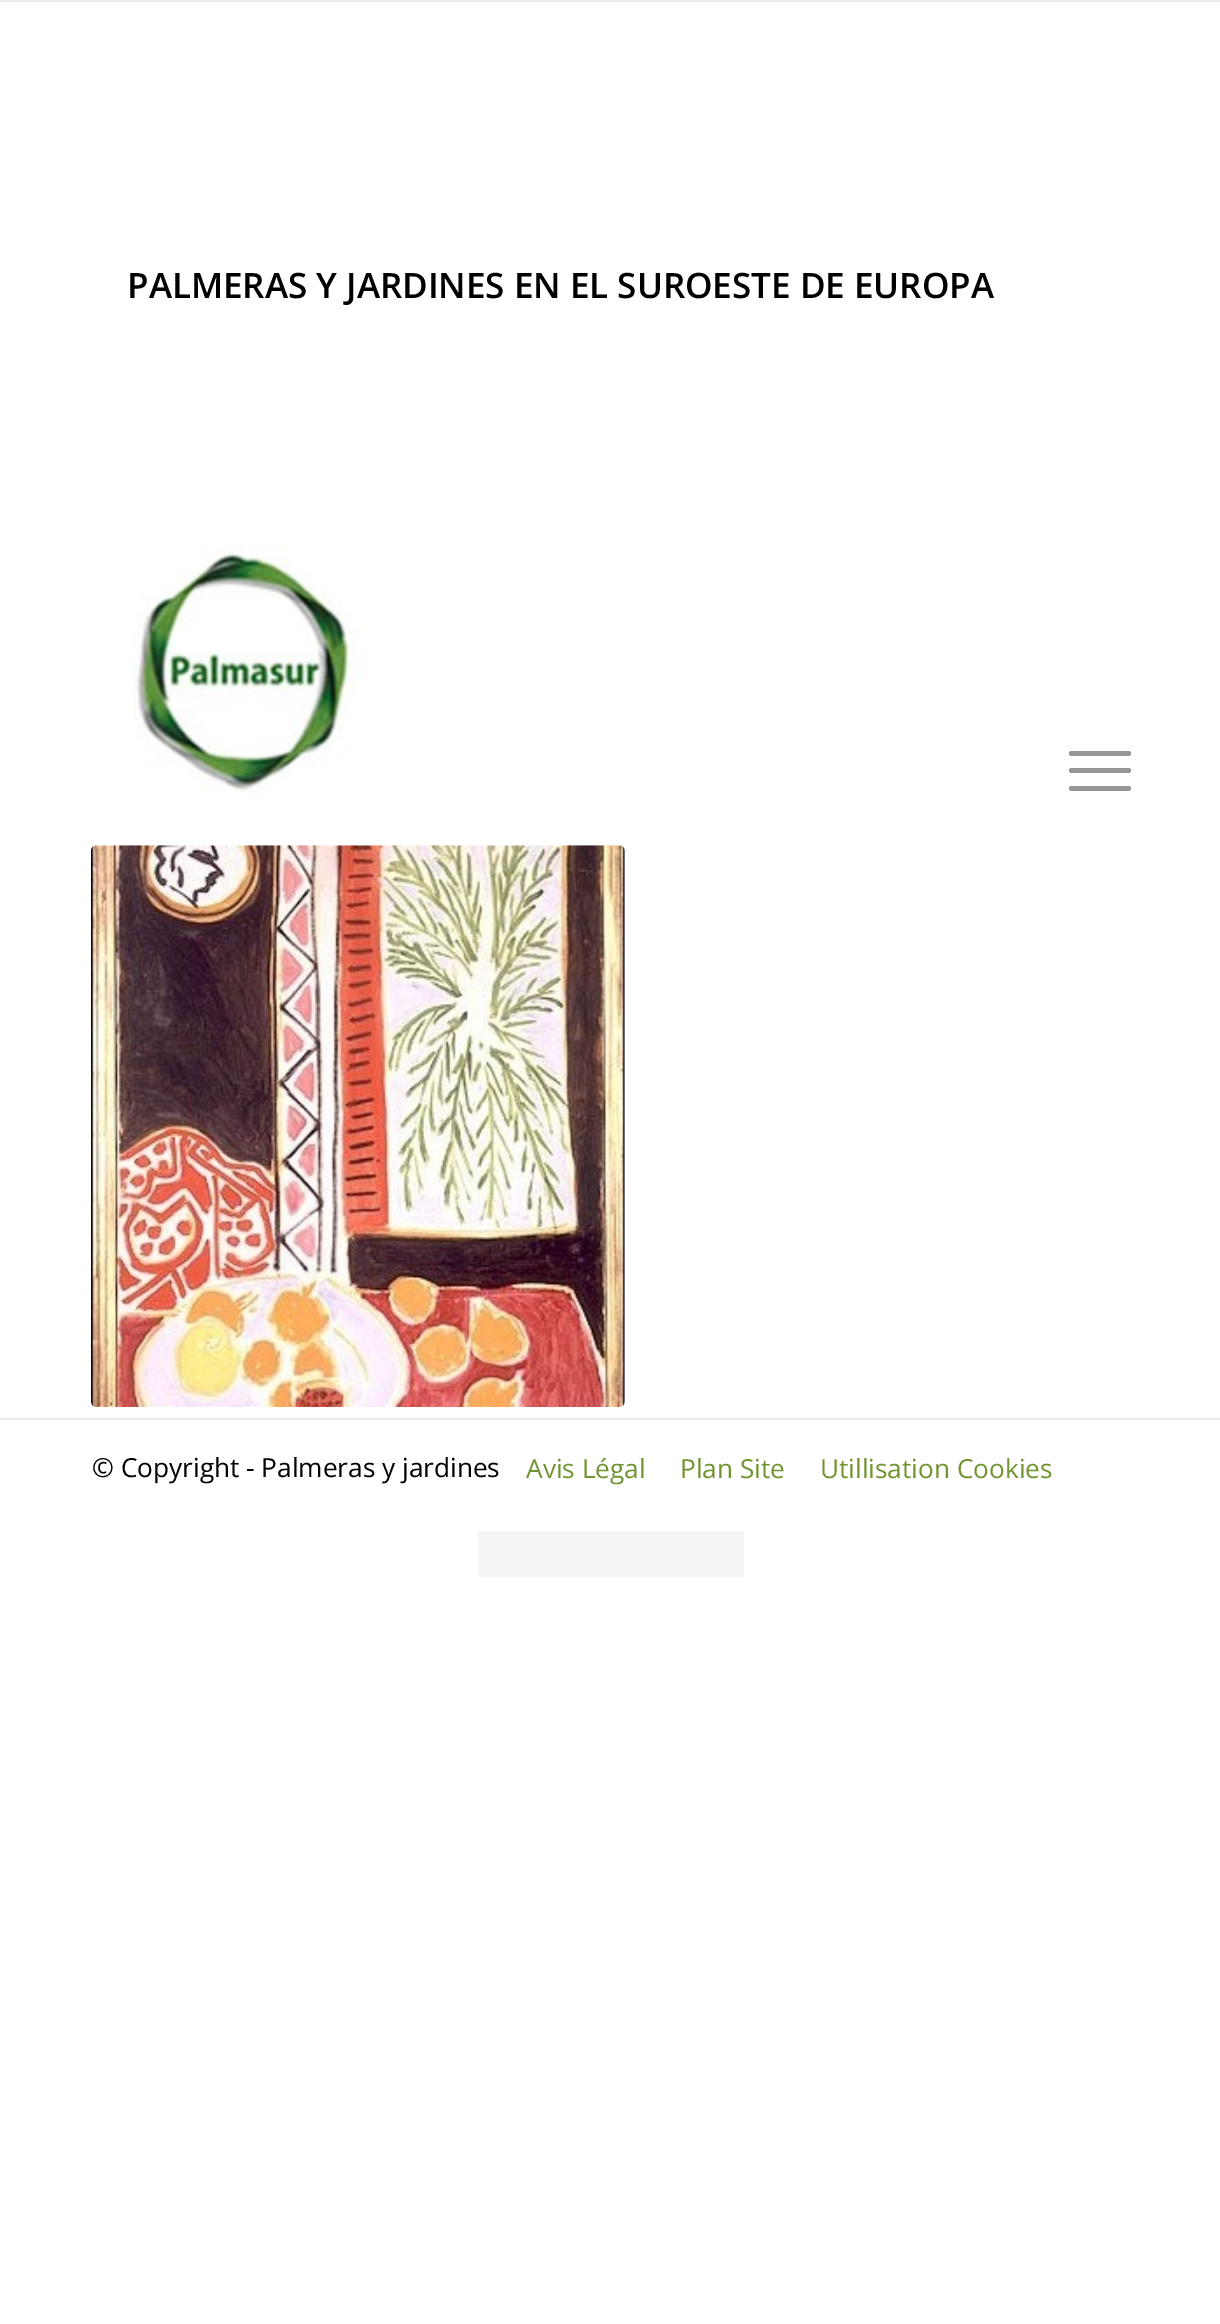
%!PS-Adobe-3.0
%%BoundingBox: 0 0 1220 2324
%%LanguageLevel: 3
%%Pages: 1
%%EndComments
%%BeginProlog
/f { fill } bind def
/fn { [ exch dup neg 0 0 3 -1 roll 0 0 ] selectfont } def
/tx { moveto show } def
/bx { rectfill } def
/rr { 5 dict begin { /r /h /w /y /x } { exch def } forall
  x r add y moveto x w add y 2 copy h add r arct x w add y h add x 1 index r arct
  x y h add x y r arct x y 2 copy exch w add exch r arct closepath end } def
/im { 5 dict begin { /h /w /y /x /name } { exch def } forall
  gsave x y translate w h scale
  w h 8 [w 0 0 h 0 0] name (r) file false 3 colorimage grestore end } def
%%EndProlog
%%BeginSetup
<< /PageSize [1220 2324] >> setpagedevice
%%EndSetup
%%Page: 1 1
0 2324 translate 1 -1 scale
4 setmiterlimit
1 setgray
0 0 1220 2324 bx
0.922 setgray
0 0 1220 2 bx
/OpenSans-SemiBold 35 fn
0 setgray
(PALMERAS Y JARDINES EN EL SUROESTE DE EUROPA) 127 298 tx
(image0.raw) 133 543 234 251 im
0.588 setgray
1069 768 62 5 2.5 rr f
1069 751 62 5 2.5 rr f
1069 786 62 5 2.5 rr f
(image1.raw) 91 845 534 562 im
0.922 setgray
0 1418 1220 2 bx
/OpenSans-Regular 26.25 fn
0 setgray
(© Copyright - Palmeras y jardines) 92 1477 tx
0.443 0.58 0.188 setrgbcolor
(Avis Légal) 526 1478 tx
(Plan Site) 680 1478 tx
(Utillisation Cookies) 820 1478 tx
0.961 setgray
478 1531 266 46 bx
showpage
%%EOF
